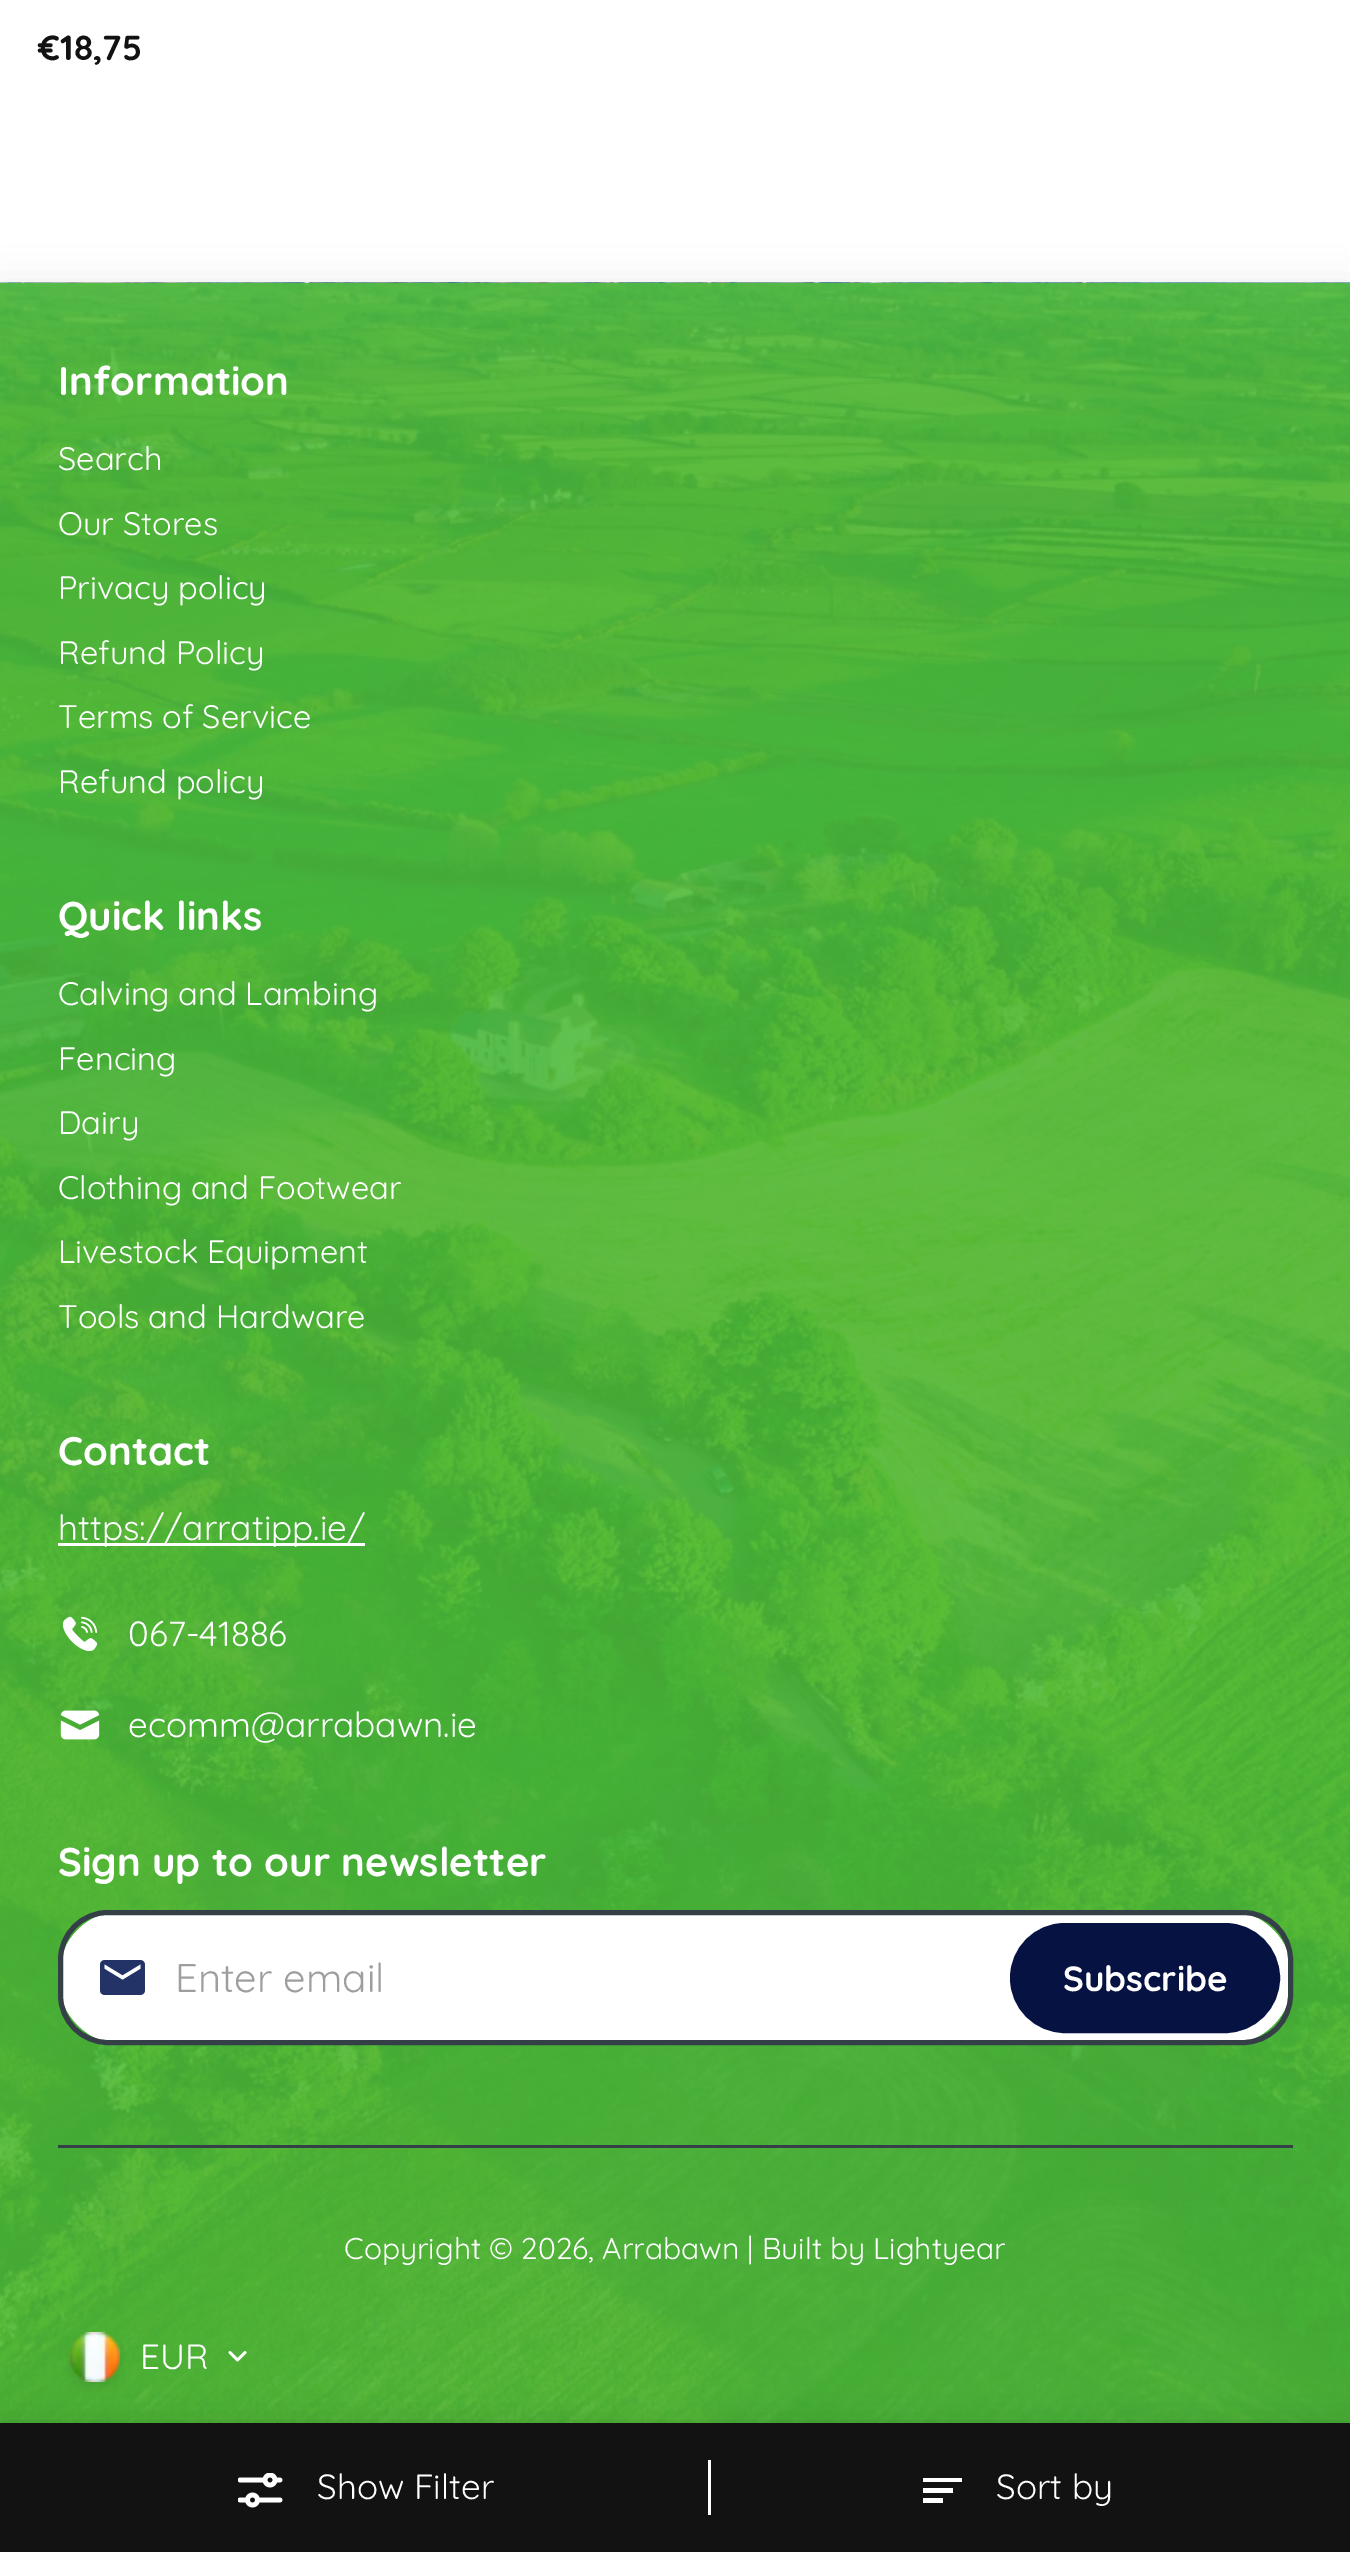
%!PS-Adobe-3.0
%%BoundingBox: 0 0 1350 2552
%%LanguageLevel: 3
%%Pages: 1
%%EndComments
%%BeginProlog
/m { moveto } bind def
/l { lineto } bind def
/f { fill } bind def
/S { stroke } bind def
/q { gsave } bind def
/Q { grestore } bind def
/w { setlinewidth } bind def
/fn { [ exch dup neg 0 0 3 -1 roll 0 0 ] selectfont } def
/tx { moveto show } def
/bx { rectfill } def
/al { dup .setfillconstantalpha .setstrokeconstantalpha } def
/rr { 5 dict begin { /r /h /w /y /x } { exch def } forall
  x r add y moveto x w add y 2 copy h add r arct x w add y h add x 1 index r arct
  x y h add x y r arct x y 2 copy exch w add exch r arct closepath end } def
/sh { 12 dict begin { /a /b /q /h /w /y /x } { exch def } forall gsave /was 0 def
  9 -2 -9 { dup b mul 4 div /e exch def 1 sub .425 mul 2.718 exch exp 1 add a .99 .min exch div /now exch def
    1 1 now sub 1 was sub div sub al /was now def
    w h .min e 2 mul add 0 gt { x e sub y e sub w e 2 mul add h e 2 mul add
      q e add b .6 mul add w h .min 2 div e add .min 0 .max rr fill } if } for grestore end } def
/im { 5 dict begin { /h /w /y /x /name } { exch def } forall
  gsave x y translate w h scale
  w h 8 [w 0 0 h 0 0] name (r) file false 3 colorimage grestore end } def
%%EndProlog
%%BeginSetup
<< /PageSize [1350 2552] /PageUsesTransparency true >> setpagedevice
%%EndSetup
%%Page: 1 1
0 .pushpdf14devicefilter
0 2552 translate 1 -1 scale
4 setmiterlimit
1 setgray
0 0 1350 2552 bx
/Quicksand-Bold 35 fn
0.071 setgray
(€18,75) 38 60 tx
0 setgray
0 283 1350 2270 0 17.5 0.07 sh
(image1.raw) 0 282 1350 2141 im
(image5.raw) 65 2332 60 60 im
0 2433 1350 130 0 17.5 0.25 sh
0.071 setgray
0 2423 1350 129 bx
1 setgray
708 2460 3 55 bx
(image0.raw) 238 2473 45 35 im
/Quicksand-Regular 35 fn
(Show Filter) 317 2499 tx
923 2478 39 4 bx
(Sort by) 996 2499 tx
923 2488 30 5 bx
923 2498 20 5 bx
/Quicksand-Bold 40 fn
(Information) 58 395 tx
/Quicksand-Regular 32.5 fn
(Search) 58 470 tx
(Our Stores) 58 535 tx
(Privacy policy) 58 599 tx
(Refund Policy) 58 664 tx
(Terms of Service) 58 728 tx
(Refund policy) 58 793 tx
/Quicksand-Bold 40 fn
(Quick links) 58 930 tx
/Quicksand-Regular 32.5 fn
(Calving and Lambing) 58 1005 tx
(Fencing) 58 1070 tx
(Dairy) 58 1134 tx
(Clothing and Footwear) 58 1199 tx
(Livestock Equipment) 58 1263 tx
(Tools and Hardware) 58 1328 tx
/Quicksand-Bold 40 fn
(Contact) 58 1465 tx
58 1543 307 3 bx
/Quicksand-Regular 35 fn
(https://arratipp.ie/) 58 1540 tx
(image2.raw) 62 1616 36 36 im
(067-41886) 128 1646 tx
(image3.raw) 60 1710 40 30 im
(ecomm@arrabawn.ie) 128 1737 tx
/Quicksand-Bold 40 fn
(Sign up to our newsletter) 58 1876 tx
58 1910 1235 135 67.5 rr f
0.208 0.247 0.282 setrgbcolor
5 w
60.5 1912.5 1230 130 47.5 rr S
(image4.raw) 100 1960 45 35 im
/Quicksand-Regular 40 fn
0.62 setgray
(Enter email) 175 1992 tx
0.024 0.071 0.255 setrgbcolor
1011.5 1924.5 267 107 53.5 rr q f Q
3 w
S
/Quicksand-Bold 35 fn
1 setgray
(Subscribe) 1063 1991 tx
0.208 0.247 0.282 setrgbcolor
58 2145 1235 3 bx
/Quicksand-Regular 30 fn
1 setgray
(Copyright © 2026, Arrabawn | Built by Lightyear) 344 2259 tx
/Quicksand-Regular 35 fn
(EUR) 140 2369 tx
2.8 w
1 setlinecap
1 setlinejoin
245 2352.5 m 237.5 2360 l 230 2352.5 l S
.poppdf14devicefilter showpage
%%EOF
